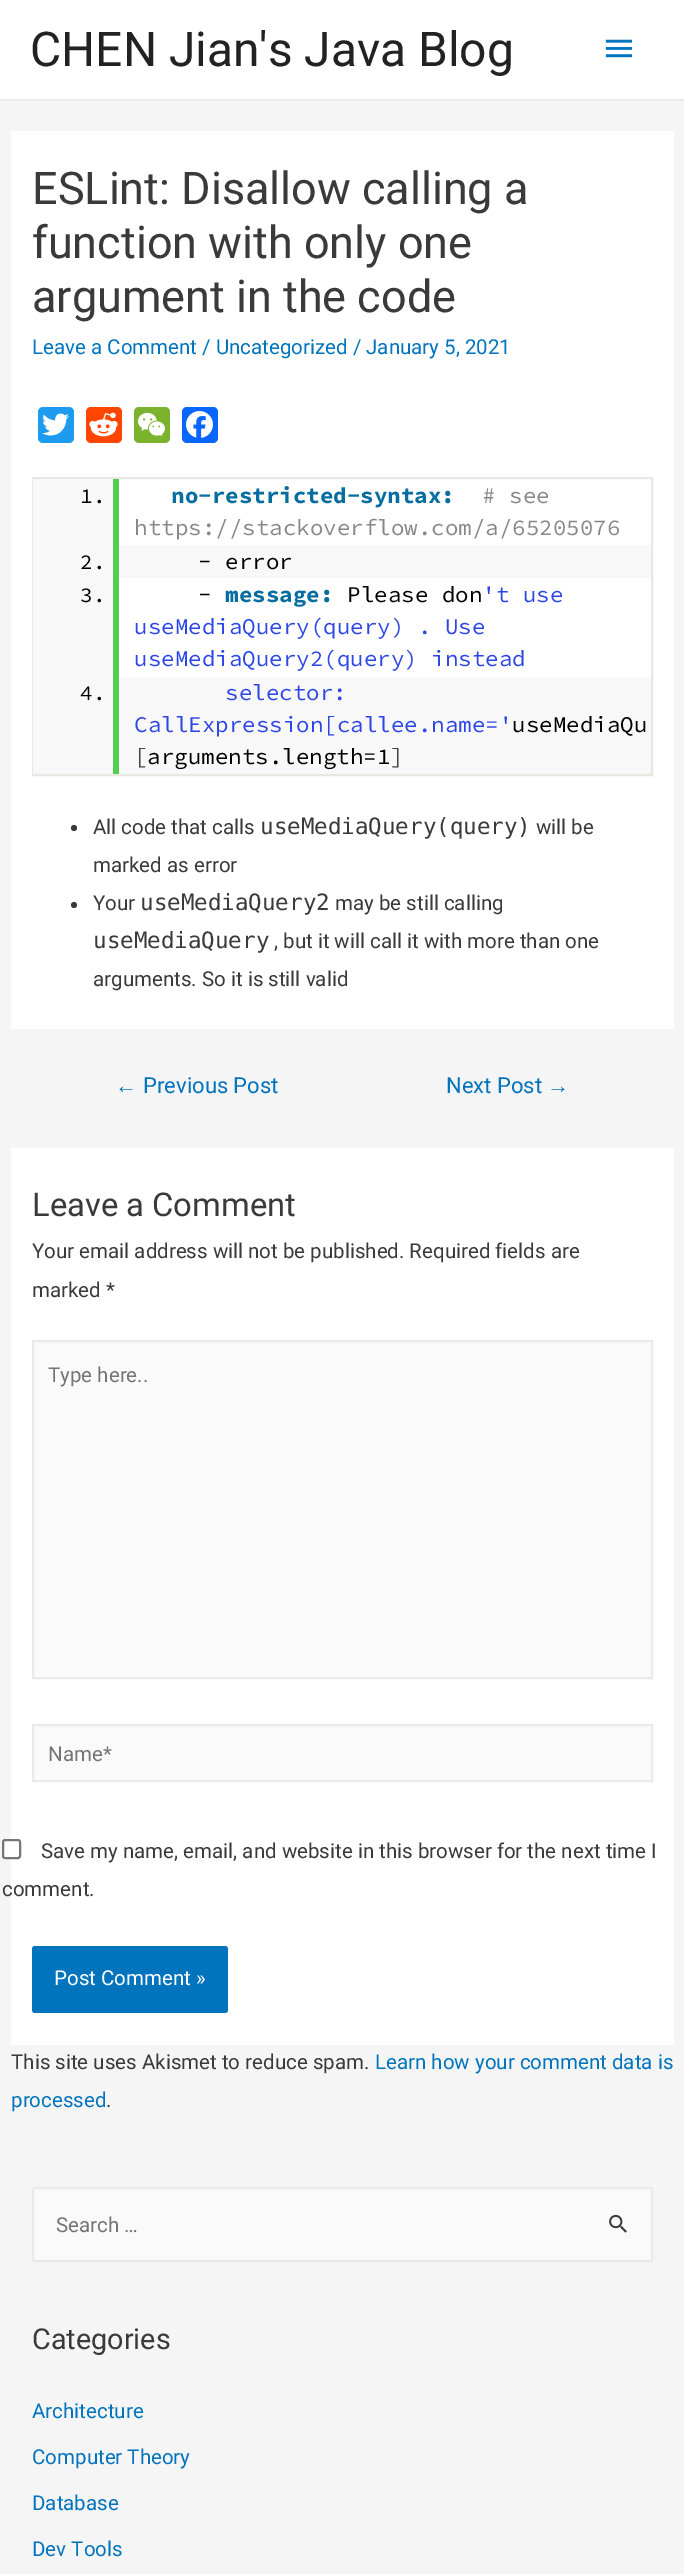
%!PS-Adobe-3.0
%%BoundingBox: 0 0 684 2574
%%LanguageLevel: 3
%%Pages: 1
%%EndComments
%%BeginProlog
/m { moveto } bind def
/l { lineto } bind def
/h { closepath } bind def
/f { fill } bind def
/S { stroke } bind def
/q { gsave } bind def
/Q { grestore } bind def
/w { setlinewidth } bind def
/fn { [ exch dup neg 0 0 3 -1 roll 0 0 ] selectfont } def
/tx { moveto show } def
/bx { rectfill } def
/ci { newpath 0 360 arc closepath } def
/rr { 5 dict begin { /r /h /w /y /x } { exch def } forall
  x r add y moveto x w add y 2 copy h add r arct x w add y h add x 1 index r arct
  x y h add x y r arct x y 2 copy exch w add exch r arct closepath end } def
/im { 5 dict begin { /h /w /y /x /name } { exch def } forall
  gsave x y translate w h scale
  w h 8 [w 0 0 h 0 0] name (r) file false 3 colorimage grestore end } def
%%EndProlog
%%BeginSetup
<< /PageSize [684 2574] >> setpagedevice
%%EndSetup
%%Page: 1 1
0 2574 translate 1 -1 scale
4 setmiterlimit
0.961 setgray
0 0 684 2574 bx
0.918 setgray
0 99 684 2 bx
1 setgray
0 0 684 99 bx
/Roboto-Regular 47.9 fn
0.133 setgray
(CHEN Jian's Java Blog) 30 66 tx
(image0.raw) 605 39 28 19 im
1 setgray
11 131 663 898 bx
/Roboto-Regular 45 fn
0.227 setgray
(ESLint: Disallow calling a) 32 204 tx
(function with only one) 32 258 tx
(argument in the code) 32 312 tx
/Roboto-Regular 20.5 fn
0.008 0.455 0.745 setrgbcolor
(Leave a Comment / Uncategorized / January 5, 2021) 32 354 tx
0.114 0.608 0.941 setrgbcolor
38 407 36 36 5 rr f
(image1.raw) 42 413 27 23 im
1 0.271 0 setrgbcolor
86 407 36 36 5 rr f
(image2.raw) 89 412 29 25 im
0.482 0.702 0.18 setrgbcolor
134 407 36 36 5 rr f
(image3.raw) 138 412 27 24 im
0.031 0.4 1 setrgbcolor
182 407 36 36 5 rr f
(image4.raw) 186 411 27 27 im
0.91 0.91 0.886 setrgbcolor
2 w
33 478 619 297 rectstroke
0.973 setgray
33 479 80 66 bx
/SourceCodePro-Regular 21 fn
0 setgray
(1.) 80 503 tx
/SourceCodePro-Bold 22.5 fn
0.024 0.427 0.631 setrgbcolor
(no-restricted-syntax:) 171 503 tx
/SourceCodePro-Regular 22.5 fn
0.533 setgray
(# see) 482 503 tx
(https://stackoverflow.com/a/65205076) 134 535 tx
0.973 setgray
33 545 618 33 bx
/SourceCodePro-Regular 21 fn
0 setgray
(2.) 80 569 tx
/SourceCodePro-Regular 22.5 fn
(- error) 198 569 tx
0.973 setgray
33 578 80 99 bx
/SourceCodePro-Regular 21 fn
0 setgray
(3.) 80 602 tx
/SourceCodePro-Regular 22.5 fn
(-) 198 602 tx
/SourceCodePro-Bold 22.5 fn
0.024 0.427 0.631 setrgbcolor
(message:) 225 602 tx
/SourceCodePro-Regular 22.5 fn
0 setgray
(Please don) 347 602 tx
0.176 0.278 0.902 setrgbcolor
('t use) 482 602 tx
(useMediaQuery\(query\) . Use) 134 634 tx
(useMediaQuery2\(query\) instead) 134 666 tx
0.973 setgray
33 677 618 97 bx
/SourceCodePro-Regular 21 fn
0 setgray
(4.) 80 700 tx
0.322 0.808 0.322 setrgbcolor
113 479 6 295 bx
/SourceCodePro-Regular 22.5 fn
0.176 0.278 0.902 setrgbcolor
(selector:) 225 700 tx
(CallExpression[callee.name=') 134 732 tx
0 setgray
(useMediaQu) 512 732 tx
0.267 setgray
([) 134 764 tx
0 setgray
(arguments.length=1) 147 764 tx
0.267 setgray
(]) 390 764 tx
0.227 setgray
74 828 3 ci f
/Roboto-Regular 20.5 fn
(All code that calls) 93 834 tx
/DejaVuSansMono-Regular 22.5 fn
(useMediaQuery\(query\)) 260 834 tx
/Roboto-Regular 20.5 fn
(will be) 536 834 tx
(marked as error) 93 872 tx
74 905 3 ci f
(Your) 93 910 tx
/DejaVuSansMono-Regular 22.5 fn
(useMediaQuery2) 140 910 tx
/Roboto-Regular 20.5 fn
(may be still calling) 335 910 tx
/DejaVuSansMono-Regular 22.5 fn
(useMediaQuery) 93 948 tx
/Roboto-Regular 20.5 fn
(, but it will call it with more than one) 274 948 tx
(arguments. So it is still valid) 93 986 tx
/LiberationSans-Regular 22 fn
0.008 0.455 0.745 setrgbcolor
(←) 115 1093 tx
/Roboto-Regular 22 fn
(Previous Post) 143 1093 tx
(Next Post) 446 1093 tx
/LiberationSans-Regular 22 fn
(→) 547 1093 tx
1 setgray
11 1148 663 897 bx
/Roboto-Regular 32.75 fn
0.227 setgray
(Leave a Comment) 32 1216 tx
/Roboto-Regular 20.5 fn
(Your email address will not be published. Required fields are) 32 1258 tx
(marked *) 32 1297 tx
0.98 setgray
33 1341 m 652 1341 l 652 1678 l 33 1678 l h q f Q
0.918 setgray
S
0.459 setgray
(Type here..) 48 1382 tx
0.98 setgray
33 1725 m 652 1725 l 652 1781 l 33 1781 l h q f Q
0.918 setgray
S
0.459 setgray
(Name*) 48 1761 tx
1 setgray
3 1840 17 18 2 rr q f Q
0.463 setgray
S
0.227 setgray
(Save my name, email, and website in this browser for the next time I) 41 1858 tx
(comment.) 2 1896 tx
0.008 0.455 0.745 setrgbcolor
32 1946 196 67 3 rr f
1 setgray
(Post Comment ») 54 1985 tx
0.227 setgray
(This site uses Akismet to reduce spam.) 11 2069 tx
0.008 0.455 0.745 setrgbcolor
(Learn how your comment data is) 375 2069 tx
(processed) 11 2107 tx
0.227 setgray
(.) 106 2107 tx
0.98 setgray
33 2188 619 73 2 rr q f Q
0.918 setgray
S
0.459 setgray
(Search …) 56 2232 tx
(image5.raw) 609 2214 18 19 im
/Roboto-Regular 28.75 fn
0.227 setgray
(Categories) 32 2349 tx
/Roboto-Regular 20.5 fn
0.008 0.455 0.745 setrgbcolor
(Architecture) 32 2418 tx
(Computer Theory) 32 2464 tx
(Database) 32 2510 tx
(Dev Tools) 32 2556 tx
showpage
%%EOF
